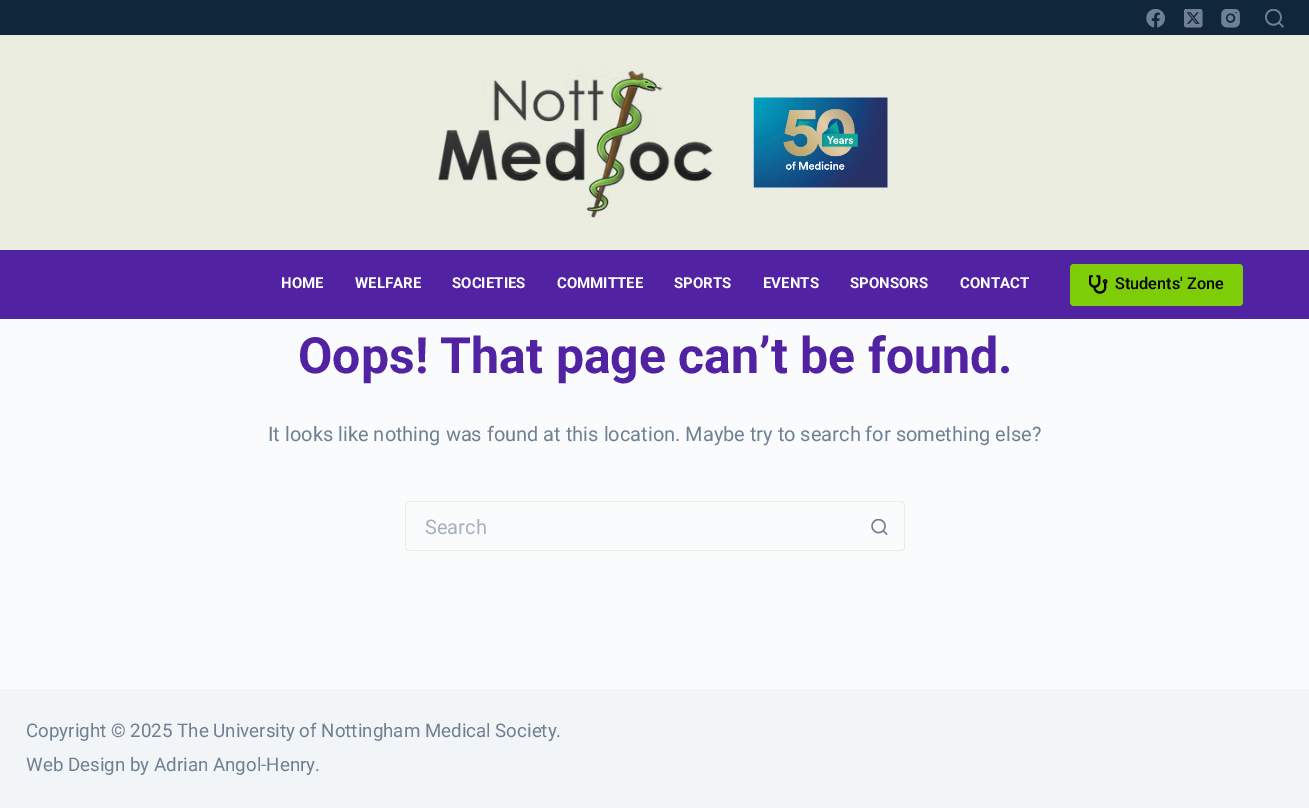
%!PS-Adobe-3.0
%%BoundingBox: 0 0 1309 808
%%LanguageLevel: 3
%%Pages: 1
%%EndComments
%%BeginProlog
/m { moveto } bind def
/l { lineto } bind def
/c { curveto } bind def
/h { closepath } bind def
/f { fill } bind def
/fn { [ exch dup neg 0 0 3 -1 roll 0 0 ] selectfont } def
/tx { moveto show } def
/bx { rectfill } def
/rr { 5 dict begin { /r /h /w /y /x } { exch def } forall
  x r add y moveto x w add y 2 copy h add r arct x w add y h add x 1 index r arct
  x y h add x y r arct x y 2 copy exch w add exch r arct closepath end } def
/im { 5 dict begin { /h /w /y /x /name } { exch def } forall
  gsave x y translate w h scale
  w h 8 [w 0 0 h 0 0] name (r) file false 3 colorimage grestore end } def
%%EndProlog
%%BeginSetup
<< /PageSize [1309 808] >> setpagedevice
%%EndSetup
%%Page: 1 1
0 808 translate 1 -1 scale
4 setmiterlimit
0.98 0.984 0.988 setrgbcolor
0 0 1309 808 bx
0.063 0.149 0.231 setrgbcolor
0 0 1309 35 bx
(image0.raw) 1146 9 19 19 im
(image1.raw) 1184 9 19 19 im
(image2.raw) 1221 9 19 19 im
(image3.raw) 1265 9 19 19 im
0.925 0.929 0.882 setrgbcolor
0 35 1309 215 bx
(image4.raw) 438 69 276 149 im
(image5.raw) 753 97 135 91 im
0.318 0.133 0.635 setrgbcolor
0 250 1309 69 bx
/Roboto-Bold 15 fn
1 setgray
(HOME) 281 288 tx
(WELFARE) 355 288 tx
(SOCIETIES) 452 288 tx
(COMMITTEE) 557 288 tx
(SPORTS) 674 288 tx
(EVENTS) 763 288 tx
(SPONSORS) 850 288 tx
(CONTACT) 960 288 tx
0.494 0.804 0.035 setrgbcolor
1070 264 173 42 4 rr f
(image6.raw) 1089 275 19 19 im
/Roboto-Medium 16.25 fn
0 setgray
(Students' Zone) 1115 289 tx
/Roboto-Bold 50 fn
0.318 0.133 0.635 setrgbcolor
(Oops! That page can’t be found.) 298 373 tx
/Roboto-Regular 20 fn
0.435 0.502 0.576 setrgbcolor
(It looks like nothing was found at this location. Maybe try to search for something else?) 268 441 tx
0.925 0.929 0.882 setrgbcolor
409 501 m 855 501 l 855 551 l 409 551 l 407 551 405 550 405 548 c 405 505 l 405 503 407 501 409 501 c h 409 502 m 855 502 l 855 550 l 409 550 l 407 550 406 549 406 548 c 406 505 l 406 504 407 502 409 502 c h eofill
0.655 0.694 0.741 setrgbcolor
(Search) 425 534 tx
0.925 0.929 0.882 setrgbcolor
855 501 m 901 501 l 903 501 905 503 905 505 c 905 548 l 905 550 903 551 901 551 c 855 551 l h 855 502 m 901 502 l 903 502 904 504 904 505 c 904 548 l 904 549 903 550 901 550 c 855 550 l h eofill
(image7.raw) 871 519 17 16 im
0.949 0.961 0.969 setrgbcolor
0 689 1309 119 bx
/Roboto-Regular 18.75 fn
0.435 0.502 0.576 setrgbcolor
(Copyright © 2025 The University of Nottingham Medical Society.) 26 737 tx
(Web Design by Adrian Angol-Henry.) 26 771 tx
showpage
%%EOF
